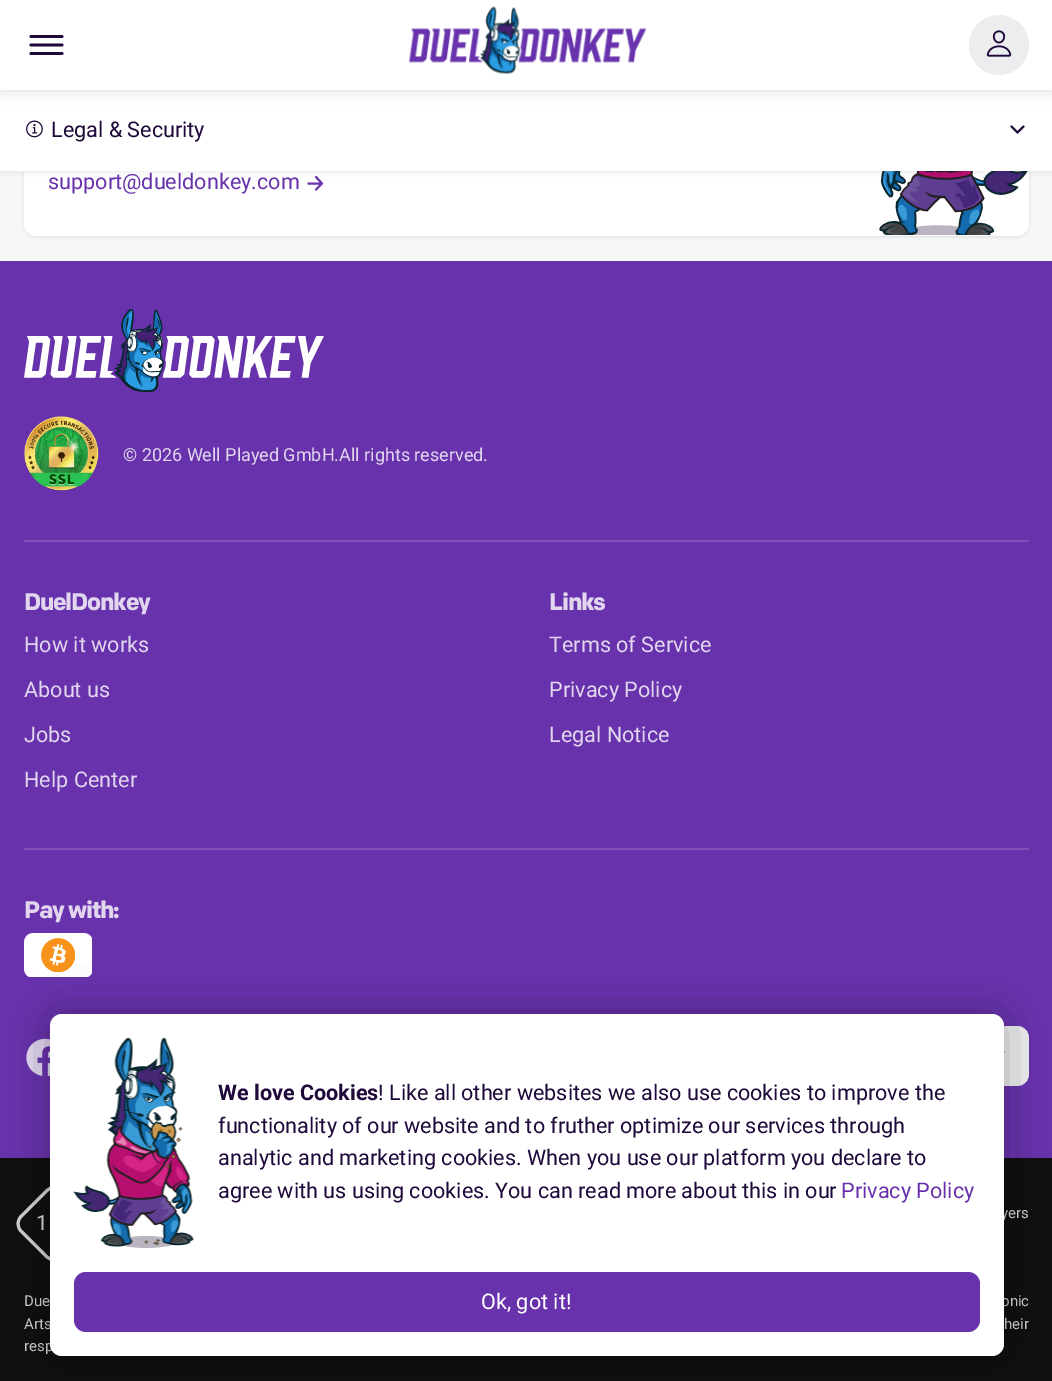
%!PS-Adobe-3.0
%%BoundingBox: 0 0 1052 1381
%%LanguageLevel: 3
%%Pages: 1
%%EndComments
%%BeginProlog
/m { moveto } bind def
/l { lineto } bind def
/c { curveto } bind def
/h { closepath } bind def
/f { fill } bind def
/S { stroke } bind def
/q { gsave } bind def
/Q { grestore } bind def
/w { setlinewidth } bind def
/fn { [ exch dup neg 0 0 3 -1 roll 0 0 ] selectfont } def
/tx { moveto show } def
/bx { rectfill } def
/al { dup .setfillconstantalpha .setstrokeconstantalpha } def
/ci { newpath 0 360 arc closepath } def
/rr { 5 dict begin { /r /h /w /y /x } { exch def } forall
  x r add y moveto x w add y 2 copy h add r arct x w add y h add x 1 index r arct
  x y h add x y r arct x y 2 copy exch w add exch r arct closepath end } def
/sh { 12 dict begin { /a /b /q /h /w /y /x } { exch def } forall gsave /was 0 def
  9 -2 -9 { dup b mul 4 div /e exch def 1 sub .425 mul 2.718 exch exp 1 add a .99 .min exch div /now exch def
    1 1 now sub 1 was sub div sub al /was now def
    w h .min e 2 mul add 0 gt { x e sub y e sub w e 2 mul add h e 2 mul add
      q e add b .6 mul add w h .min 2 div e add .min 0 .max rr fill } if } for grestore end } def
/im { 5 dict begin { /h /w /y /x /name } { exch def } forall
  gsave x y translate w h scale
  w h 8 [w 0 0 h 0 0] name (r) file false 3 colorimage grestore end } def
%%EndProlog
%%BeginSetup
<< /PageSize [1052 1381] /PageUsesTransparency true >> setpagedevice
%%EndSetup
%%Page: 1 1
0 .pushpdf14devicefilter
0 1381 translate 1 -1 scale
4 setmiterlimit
0.961 0.969 0.976 setrgbcolor
0 0 1052 1381 bx
q
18 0 m 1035 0 l 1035 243 l 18 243 l h 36 -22 m 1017 -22 l 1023.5 -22 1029 -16.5 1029 -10 c 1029 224 l 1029 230.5 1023.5 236 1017 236 c 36 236 l 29.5 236 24 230.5 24 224 c 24 -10 l 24 -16.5 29.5 -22 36 -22 c h eoclip newpath
0 setgray
24 -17 1005 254 12 1.5 0.1 sh
Q
1 setgray
24 -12 1005 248 12 rr f
0.408 0.196 0.675 setrgbcolor
2 w
1 setlinecap
1 setlinejoin
316 177 m 322 183.5 l 316 189.5 l 321 183.5 m 308.5 183.5 l S
(image3.raw) 879 171 149 64 im
0 setgray
0 90 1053 81 0 4 0.1 sh
1 setgray
0 90 1052 81 bx
0 setgray
0 0 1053 90 0 7.5 0.15 sh
1 setgray
0 0 1052 90 bx
0.122 0.035 0.227 setrgbcolor
2.8 w
0 setlinejoin
31 36.5 m 62 36.5 l 31 45 m 62 45 l 31 53.5 m 62 53.5 l S
(image0.raw) 408 6 239 68 im
0.922 0.929 0.937 setrgbcolor
999 45 29 ci q f Q
2 w
0 setlinecap
S
(image1.raw) 986 30 26 27 im
(image2.raw) 26 120 17 18 im
/Roboto-Regular 21.6 fn
0.122 0.035 0.227 setrgbcolor
(Legal & Security) 51 137 tx
1 setlinecap
1 setlinejoin
1023.5 126.5 m 1017.5 132.5 l 1011.5 126.5 l S
0.408 0.196 0.675 setrgbcolor
(support@dueldonkey.com) 48 189 tx
0 261 1052 897 bx
(image4.raw) 24 309 300 84 im
(image5.raw) 24 416 75 76 im
/Roboto-Regular 18 fn
0.882 0.839 0.933 setrgbcolor
(© 2026 Well Played GmbH.All rights reserved.) 123 461 tx
0.498 0.318 0.722 setrgbcolor
24 540 1005 2 bx
/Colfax-Bold 24 fn
0.882 0.839 0.933 setrgbcolor
24 610 m -1.25 0 (DuelDonkey) ashow
/Roboto-Regular 21.6 fn
(How it works) 24 652 tx
(About us) 24 697 tx
(Jobs) 24 742 tx
(Help Center) 24 787 tx
/Colfax-Bold 24 fn
549 610 m -1.25 0 (Links) ashow
/Roboto-Regular 21.6 fn
(Terms of Service) 549 652 tx
(Privacy Policy) 549 697 tx
(Legal Notice) 549 742 tx
0.498 0.318 0.722 setrgbcolor
24 848 1005 2 bx
/Colfax-Bold 24 fn
0.882 0.839 0.933 setrgbcolor
24 918 m -1.25 0 (Pay with:) ashow
(image6.raw) 24 933 68 44 im
(image7.raw) 26 1038 24 39 im
0.922 0.929 0.937 setrgbcolor
900 1026 129 60 12 rr f
0.122 0.035 0.227 setrgbcolor
993 1051.5 m 1005 1051.5 l 999 1057.5 l h f
0.059 setgray
0 1158 1052 223 bx
0.812 setgray
3 w
0 setlinecap
0 setlinejoin
21 1216.5 m 46.5 1191 l 50.5 1186.5 57.5 1186.5 61.5 1191 c 87 1216.5 l 91 1220.5 91 1227 87 1231 c 61.5 1256.5 l 57.5 1260.5 50.5 1260.5 46.5 1256.5 c 21 1231 l 17 1227 17 1220.5 21 1216.5 c h S
/Roboto-Regular 21 fn
(1) 36 1230 tx
/Roboto-Regular 15 fn
1001 1218 m 1 0 32 (yers) widthshow
(Due) 24 1306 tx
(onic) 1001 1306 tx
(Arts) 24 1329 tx
(heir) 1004 1329 tx
(resp) 24 1351 tx
0 setgray
50 1014 954 342 12 22.5 0.3 sh
1 setgray
50 1014 954 342 12 rr f
(image8.raw) 73 1038 121 210 im
/Roboto-Bold 21.6 fn
0.122 0.035 0.227 setrgbcolor
(We love Cookies) 218 1100 tx
/Roboto-Regular 21.6 fn
(! Like all other websites we also use cookies to improve the) 378 1100 tx
(functionality of our website and to fruther optimize our services through) 218 1133 tx
(analytic and marketing cookies. When you use our platform you declare to) 218 1165 tx
(agree with us using cookies. You can read more about this in our) 218 1198 tx
0.408 0.196 0.675 setrgbcolor
(Privacy Policy) 841 1198 tx
74 1272 906 60 12 rr f
1 setgray
(Ok, got it!) 481 1309 tx
.poppdf14devicefilter showpage
%%EOF
